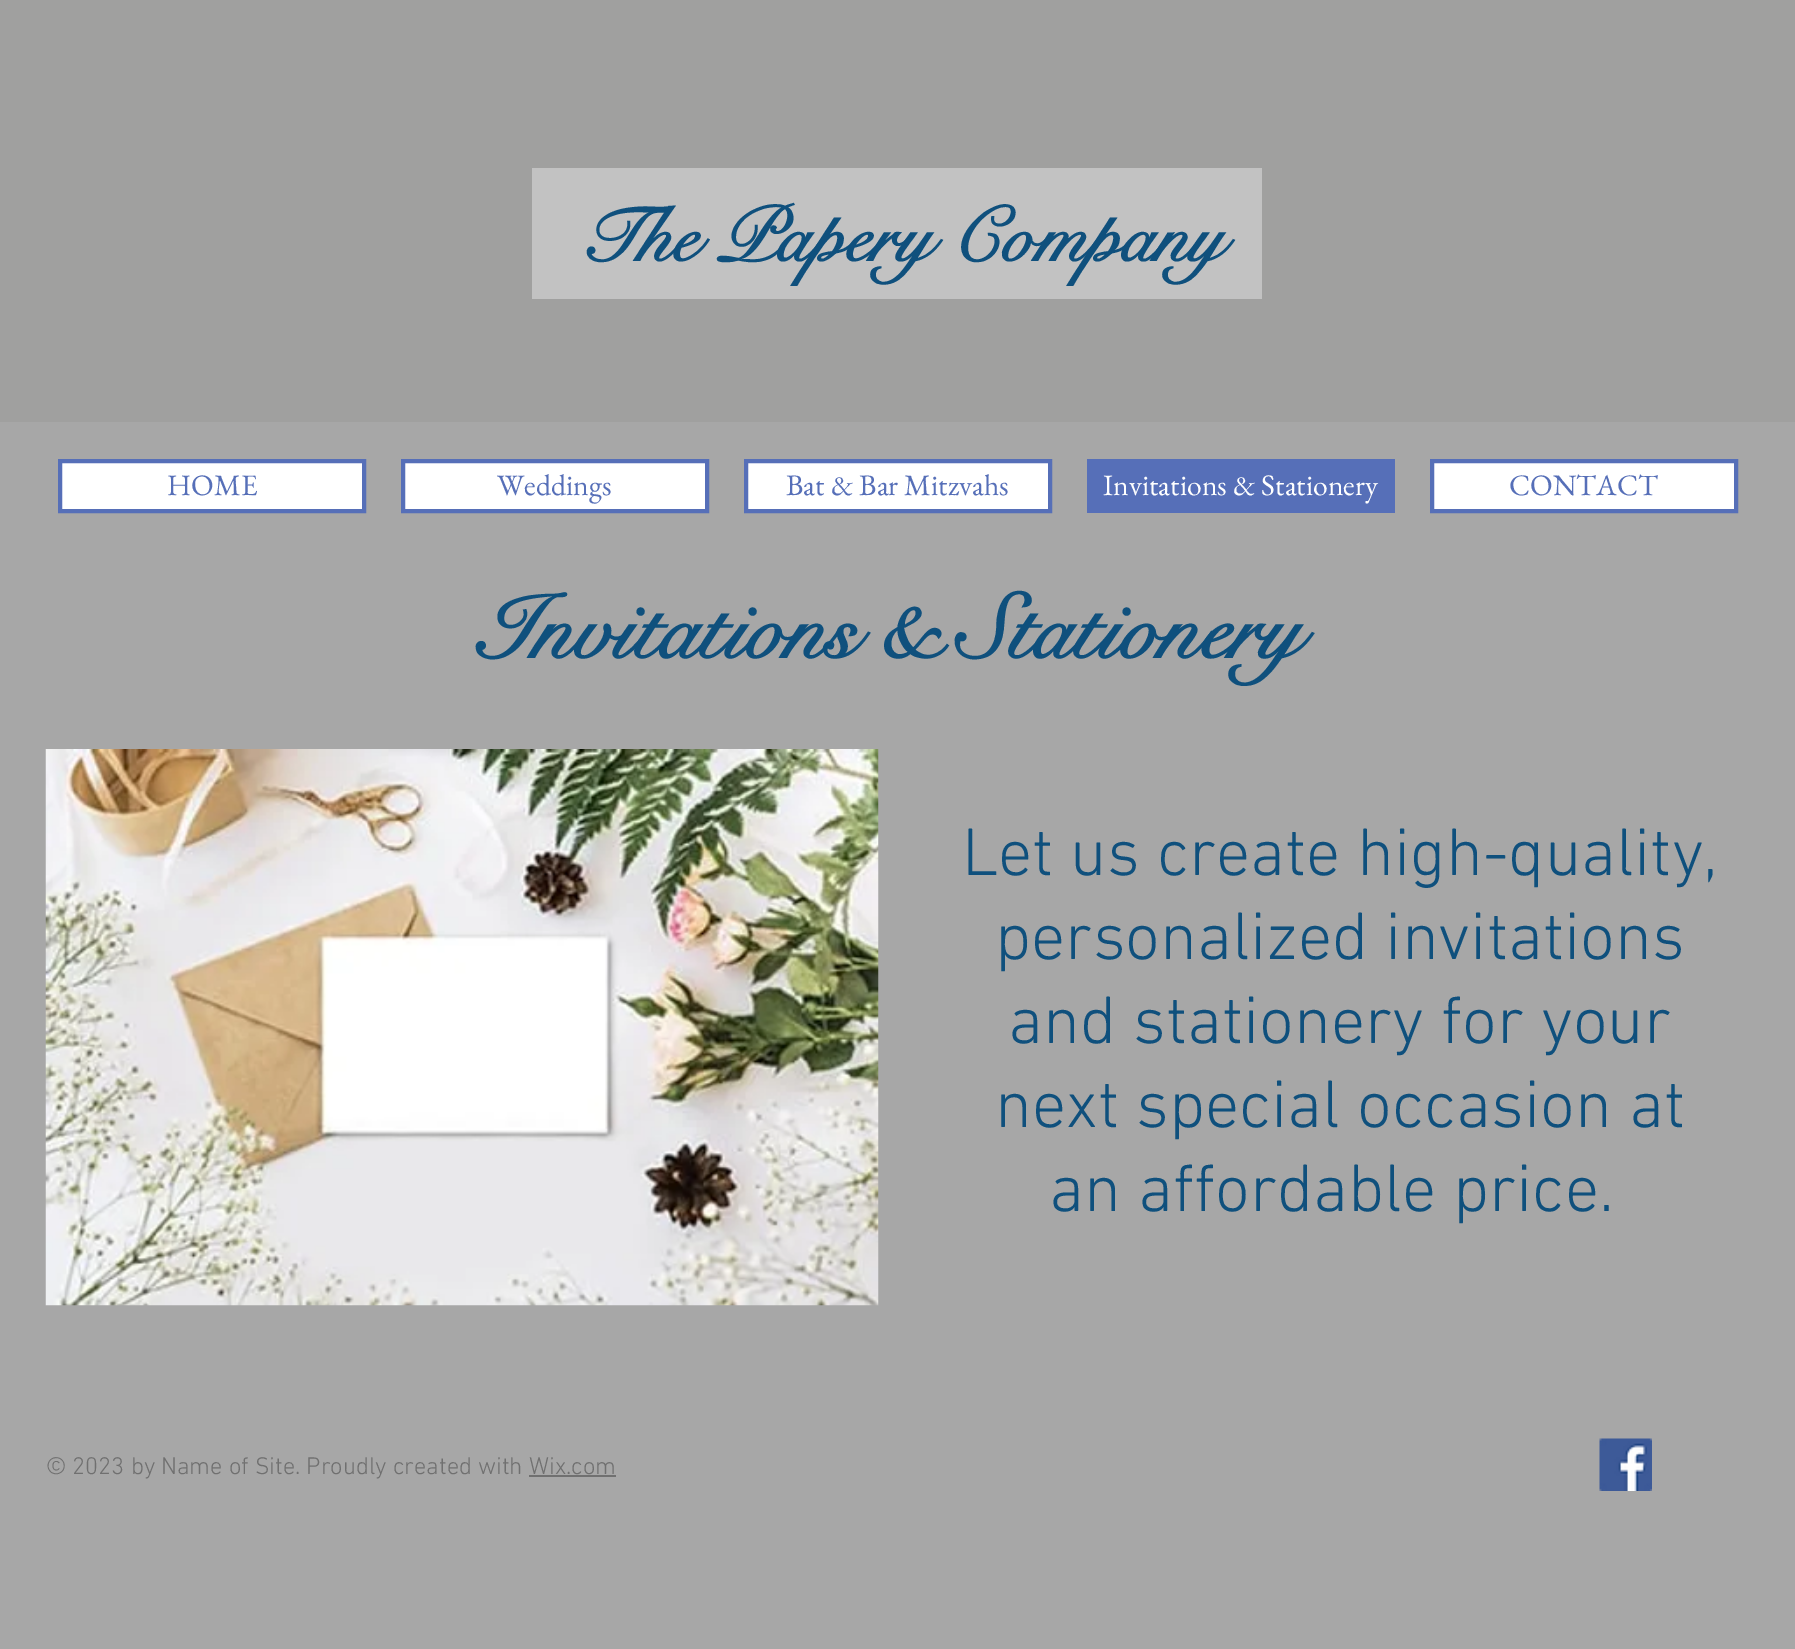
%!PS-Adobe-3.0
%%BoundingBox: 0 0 1795 1649
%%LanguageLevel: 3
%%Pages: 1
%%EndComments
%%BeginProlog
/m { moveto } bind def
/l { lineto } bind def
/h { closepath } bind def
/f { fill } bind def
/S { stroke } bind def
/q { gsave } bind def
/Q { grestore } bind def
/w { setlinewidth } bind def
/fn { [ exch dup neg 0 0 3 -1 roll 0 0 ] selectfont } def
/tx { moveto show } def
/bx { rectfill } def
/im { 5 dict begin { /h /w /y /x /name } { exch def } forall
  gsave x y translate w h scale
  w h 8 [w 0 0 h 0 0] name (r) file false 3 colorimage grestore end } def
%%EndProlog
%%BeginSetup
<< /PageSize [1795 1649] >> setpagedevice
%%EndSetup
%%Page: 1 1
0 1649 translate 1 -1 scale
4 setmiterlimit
0.655 setgray
0 0 1795 1649 bx
0.627 0.627 0.624 setrgbcolor
0 0 1795 422 bx
0.761 setgray
532 168 730 131 bx
/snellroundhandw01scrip-Bold 77 fn
0.059 0.314 0.49 setrgbcolor
(The Papery Company) 578 261 tx
1 setgray
60 461 m 364 461 l 364 511 l 60 511 l h q f Q
0.337 0.435 0.722 setrgbcolor
4 w
S
/EBGaramond-Regular 29.75 fn
(HOME) 167 495 tx
1 setgray
403 461 m 707 461 l 707 511 l 403 511 l h q f Q
0.337 0.435 0.722 setrgbcolor
S
(Weddings) 497 495 tx
1 setgray
746 461 m 1050 461 l 1050 511 l 746 511 l h q f Q
0.337 0.435 0.722 setrgbcolor
S
(Bat & Bar Mitzvahs) 786 495 tx
1087 459 308 54 bx
1 setgray
(Invitations & Stationery) 1103 495 tx
1432 461 m 1736 461 l 1736 511 l 1432 511 l h q f Q
0.337 0.435 0.722 setrgbcolor
S
(CONTACT) 1509 495 tx
/snellroundhandw01scrip-Bold 91 fn
0.059 0.314 0.49 setrgbcolor
(Invitations & Stationery) 477 658 tx
(image0.raw) 45 749 834 557 im
/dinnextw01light-Light 68.25 fn
(Let us create high-quality,) 962 875 tx
(personalized invitations) 995 959 tx
(and stationery for your) 1008 1043 tx
(next special occasion at) 995 1127 tx
(an affordable price.) 1049 1211 tx
/dinnextw01light-Light 24.5 fn
0.439 setgray
(© 2023 by Name of Site. Proudly created with Wix.com) 46 1474 tx
529 1475 87 2 bx
(image1.raw) 1599 1438 53 53 im
showpage
%%EOF
